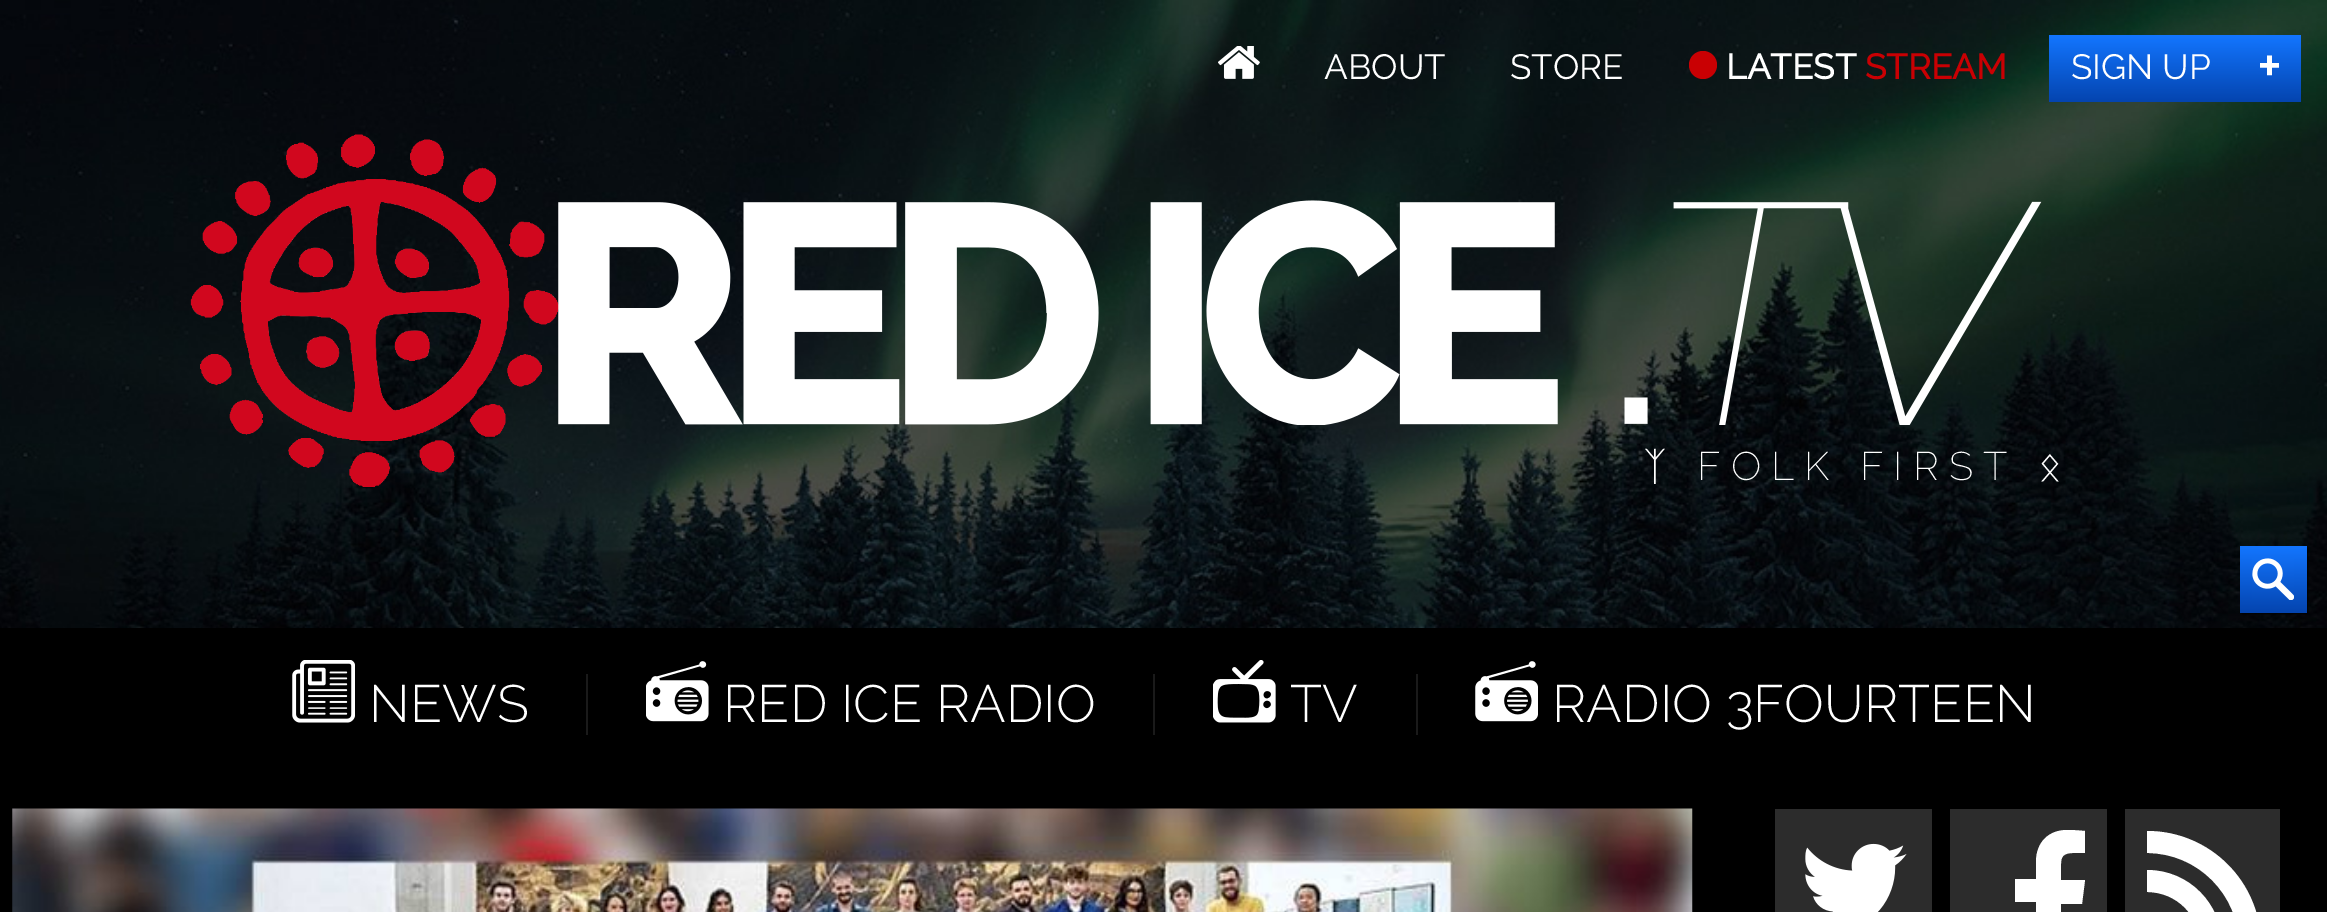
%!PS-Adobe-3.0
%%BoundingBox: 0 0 2327 912
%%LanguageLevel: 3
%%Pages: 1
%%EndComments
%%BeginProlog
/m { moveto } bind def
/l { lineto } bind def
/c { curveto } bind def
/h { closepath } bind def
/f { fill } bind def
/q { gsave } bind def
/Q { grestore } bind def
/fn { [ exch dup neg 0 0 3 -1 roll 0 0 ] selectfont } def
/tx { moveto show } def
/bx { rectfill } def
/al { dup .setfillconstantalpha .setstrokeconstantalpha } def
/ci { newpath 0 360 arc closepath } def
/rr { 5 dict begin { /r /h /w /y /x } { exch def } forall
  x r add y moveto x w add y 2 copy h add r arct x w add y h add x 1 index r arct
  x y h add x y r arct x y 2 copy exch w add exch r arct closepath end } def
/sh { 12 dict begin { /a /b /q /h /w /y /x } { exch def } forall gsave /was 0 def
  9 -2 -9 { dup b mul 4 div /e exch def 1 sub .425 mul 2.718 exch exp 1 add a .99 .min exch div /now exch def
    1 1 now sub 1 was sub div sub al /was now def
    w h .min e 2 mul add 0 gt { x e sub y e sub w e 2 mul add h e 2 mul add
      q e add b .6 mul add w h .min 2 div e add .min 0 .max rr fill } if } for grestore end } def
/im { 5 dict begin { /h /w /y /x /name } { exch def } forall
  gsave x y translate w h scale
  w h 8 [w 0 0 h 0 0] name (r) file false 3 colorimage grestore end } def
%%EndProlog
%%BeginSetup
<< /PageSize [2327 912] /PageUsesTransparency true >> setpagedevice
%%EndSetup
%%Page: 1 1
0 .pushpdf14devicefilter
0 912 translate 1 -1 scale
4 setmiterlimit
1 setgray
0 0 2327 912 bx
(image0.raw) 0 0 2327 628 im
(image1.raw) 1218 46 42 33 im
/Raleway-Regular 35 fn
(ABOUT) 1324 79 tx
(STORE) 1510 79 tx
0.788 0 0.012 setrgbcolor
1703 65 14 ci f
/Raleway-Bold 35 fn
1 setgray
(LATEST) 1726 79 tx
0.788 0 0.012 setrgbcolor
(STREAM) 1865 79 tx
q 2049 35 m 2301 35 l 2301 102 l 2049 102 l h clip newpath
<< /ShadingType 2 /ColorSpace /DeviceRGB /Coords [2175 35 2175 102] /Extend [true true] /Function << /FunctionType 2 /Domain [0 1] /C0 [0.075 0.463 1] /C1 [0.016 0.267 0.686] /N 1 >> >> shfill Q
/Raleway-Regular 35 fn
1 setgray
(SIGN UP) 2071 79 tx
/Raleway-Bold 56 fn
(+) 2257 86 tx
(image3.raw) 190 134 369 353 im
(image2.raw) 558 200 1484 225 im
/FreeMono-Regular 39.75 fn
1643 480 m 10 0 (ᛉ) ashow
/Raleway-ExtraLight 39.75 fn
1697 480 m 10 0 (FOLK FIRST) ashow
/FreeMono-Regular 39.75 fn
2038 480 m 10 0 (ᛟ) ashow
0 setgray
2242 548 66 66 0 1 1 sh
q 2240 546 m 2307 546 l 2307 613 l 2240 613 l h clip newpath
<< /ShadingType 2 /ColorSpace /DeviceRGB /Coords [2273 546 2273 613] /Extend [true true] /Function << /FunctionType 2 /Domain [0 1] /C0 [0.075 0.463 1] /C1 [0.016 0.267 0.686] /N 1 >> >> shfill Q
(image4.raw) 2252 558 42 42 im
0 628 2327 284 bx
(image5.raw) 292 660 63 63 im
/Raleway-Light 52.4 fn
1 setgray
(NEWS) 369 722 tx
0.102 setgray
586 674 2 61 bx
(image6.raw) 646 661 63 61 im
1 setgray
(RED ICE RADIO) 723 722 tx
0.102 setgray
1153 674 2 61 bx
(image7.raw) 1213 660 63 63 im
1 setgray
(TV) 1290 722 tx
0.102 setgray
1416 674 2 61 bx
(image8.raw) 1475 661 63 61 im
1 setgray
(RADIO 3FOURTEEN) 1552 722 tx
(image9.raw) 12 808 1681 104 im
0.173 setgray
1775 809 157 103 bx
(image10.raw) 1805 843 102 69 im
1950 809 157 103 bx
1 setgray
2061 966 m 2061 904 l 2082 904 l 2085 880 l 2061 880 l 2061 864 l 2061 857 2063 853 2073 853 c 2085 853 l 2085 831 l 2084 831 2076 830 2067 830 c 2049 830 2036 842 2036 862 c 2036 879 l 2015 879 l 2015 902 l 2036 902 l 2036 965 l h f
0.173 setgray
2125 809 155 103 bx
1 setgray
2147 892 m 2177 892 2200 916 2200 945 c 2222 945 l 2222 904 2189 870 2147 870 c h f
2147 853 m 2198 853 2239 895 2239 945 c 2261 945 l 2261 882 2210 831 2147 831 c h f
.poppdf14devicefilter showpage
%%EOF
